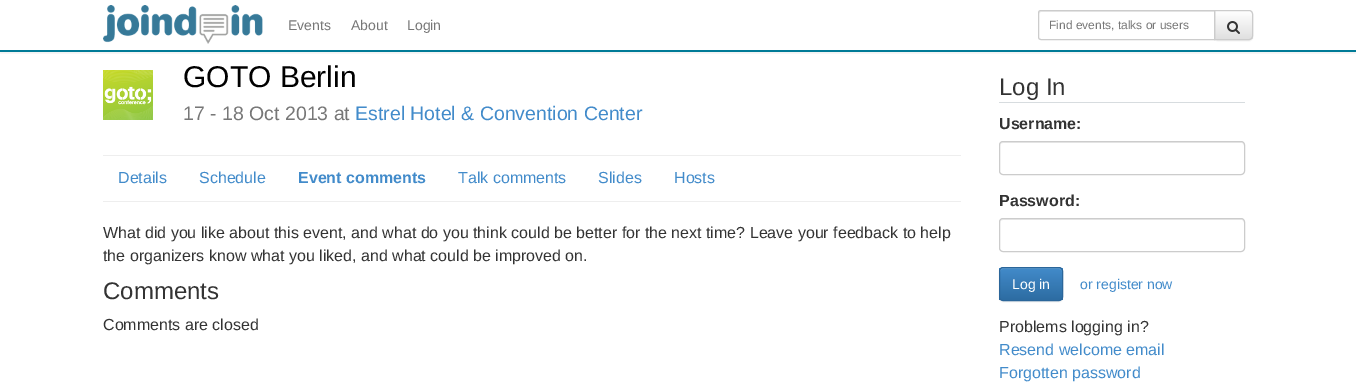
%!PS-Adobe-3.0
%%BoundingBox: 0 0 1356 385
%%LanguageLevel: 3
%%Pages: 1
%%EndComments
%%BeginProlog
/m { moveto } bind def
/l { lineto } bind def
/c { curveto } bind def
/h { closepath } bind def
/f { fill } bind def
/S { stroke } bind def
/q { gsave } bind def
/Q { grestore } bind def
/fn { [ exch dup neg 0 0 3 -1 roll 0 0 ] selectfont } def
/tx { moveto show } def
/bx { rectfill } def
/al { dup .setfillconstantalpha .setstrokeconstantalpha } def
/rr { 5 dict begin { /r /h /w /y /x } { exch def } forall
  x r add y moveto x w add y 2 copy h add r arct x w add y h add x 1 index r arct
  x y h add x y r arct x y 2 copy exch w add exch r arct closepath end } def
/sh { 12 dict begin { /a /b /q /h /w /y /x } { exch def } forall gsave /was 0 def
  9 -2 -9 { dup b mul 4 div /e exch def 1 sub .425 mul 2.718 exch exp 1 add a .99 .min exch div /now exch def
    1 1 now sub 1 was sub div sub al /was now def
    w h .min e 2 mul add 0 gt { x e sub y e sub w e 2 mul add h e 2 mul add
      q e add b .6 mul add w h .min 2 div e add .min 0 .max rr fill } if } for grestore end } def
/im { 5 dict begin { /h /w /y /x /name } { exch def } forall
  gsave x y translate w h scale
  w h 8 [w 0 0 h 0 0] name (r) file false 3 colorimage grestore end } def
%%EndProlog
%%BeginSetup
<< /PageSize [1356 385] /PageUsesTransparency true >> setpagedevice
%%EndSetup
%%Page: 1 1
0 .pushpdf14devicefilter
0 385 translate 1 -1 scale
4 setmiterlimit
1 setgray
0 0 1356 385 bx
q
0 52 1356 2 rectclip
0 setgray
0 1 1356 52 0 2.5 0.07 sh
Q
0 0.482 0.592 setrgbcolor
0 50 1356 2 bx
(image0.raw) 103 5 160 39 im
/LiberationSans-Regular 14 fn
0.467 setgray
(Events) 288 30 tx
(About) 351 30 tx
(Login) 407 30 tx
0 setgray
1214 11 39 30 4 0.5 0.07 sh
q
1214 10 m 1249 10 l 1251 10 1253 12 1253 14 c 1253 36 l 1253 38 1251 40 1249 40 c 1214 40 l h clip newpath
q 1215 11 m 1253 11 l 1253 39 l 1215 39 l h clip newpath
<< /ShadingType 2 /ColorSpace /DeviceRGB /Coords [1234 11 1234 39] /Extend [true true] /Function << /FunctionType 2 /Domain [0 1] /C0 [1 1 1] /C1 [0.878 0.878 0.878] /N 1 >> >> shfill Q
Q
0.8 setgray
1214.5 10.5 m 1249 10.5 l 1251 10.5 1252.5 12 1252.5 14 c 1252.5 36 l 1252.5 38 1251 39.5 1249 39.5 c 1214.5 39.5 l h S
1 setgray
1041 10 m 1215 10 l 1215 40 l 1041 40 l 1039.5 40 1038 38.5 1038 37 c 1038 13 l 1038 11.5 1039.5 10 1041 10 c h f
0.925 setgray
1041 12 m 1214 12 l 1214 11 l 1040 11 l 1039 12 1039 13 1039 14 c 1039 13 1040 12 1041 12 c h f
0.8 setgray
1041 10.5 m 1214.5 10.5 l 1214.5 39.5 l 1041 39.5 l 1039.5 39.5 1038.5 38.5 1038.5 37 c 1038.5 13 l 1038.5 11.5 1039.5 10.5 1041 10.5 c h S
/LiberationSans-Regular 12 fn
0.467 setgray
(Find events, talks or users) 1049 29 tx
(image1.raw) 1227 21 13 13 im
0.933 setgray
103 201 858 1 bx
(image2.raw) 103 70 50 50 im
/LiberationSans-Regular 30 fn
0 setgray
(GOTO Berlin) 183 87 tx
/LiberationSans-Regular 19.5 fn
0.467 setgray
(17 - 18 Oct 2013 at) 183 120 tx
0.259 0.545 0.792 setrgbcolor
(Estrel Hotel & Convention Center) 355 120 tx
0.933 setgray
103 155 858 1 bx
/LiberationSans-Regular 16 fn
0.259 0.545 0.792 setrgbcolor
(Details) 118 183 tx
(Schedule) 199 183 tx
/LiberationSans-Bold 16 fn
(Event comments) 298 183 tx
/LiberationSans-Regular 16 fn
(Talk comments) 458 183 tx
(Slides) 598 183 tx
(Hosts) 674 183 tx
0.2 setgray
(What did you like about this event, and what do you think could be better for the next time? Leave your feedback to help) 103 238 tx
(the organizers know what you liked, and what could be improved on.) 103 261 tx
/LiberationSans-Regular 24 fn
(Comments) 103 299 tx
/LiberationSans-Regular 16 fn
(Comments are closed) 103 330 tx
0.843 0.863 0.875 setrgbcolor
999 102 246 1 bx
/LiberationSans-Regular 24 fn
0.2 setgray
(Log In) 999 95 tx
/LiberationSans-Bold 16 fn
(Username:) 999 129 tx
0.925 setgray
1003 143 m 1242 143 l 1244 144 l 1244 146 l 1244 144 1243 142 1241 142 c 1003 142 l 1001 142 1000 144 1000 146 c 1000 144 1001 143 1003 143 c h f
0.8 setgray
999.5 141.5 245 33 3.5 rr S
0.2 setgray
(Password:) 999 206 tx
0.925 setgray
1003 220 m 1242 220 l 1244 221 l 1244 223 l 1244 221 1243 219 1241 219 c 1003 219 l 1001 219 1000 221 1000 223 c 1000 221 1001 220 1003 220 c h f
0.8 setgray
999.5 218.5 245 33 3.5 rr S
0 setgray
999 268 64 34 4 0.5 0.07 sh
q
999 267 64 34 4 rr clip newpath
q 999 268 m 1063 268 l 1063 300 l 999 300 l h clip newpath
<< /ShadingType 2 /ColorSpace /DeviceRGB /Coords [1031 268 1031 300] /Extend [true true] /Function << /FunctionType 2 /Domain [0 1] /C0 [0.259 0.545 0.792] /C1 [0.176 0.424 0.635] /N 1 >> >> shfill Q
Q
0.369 0.612 0.82 setrgbcolor
1003 269 m 1059 269 l 1061 269 1062 270 1062 272 c 1062 266 1054 268 1050 268 c 1012 268 l 1008 268 1000 266 1000 272 c 1000 270 1001 269 1003 269 c h f
0.169 0.4 0.604 setrgbcolor
999.5 267.5 63 33 3.5 rr S
/LiberationSans-Regular 14 fn
1 setgray
(Log in) 1012 289 tx
0.259 0.545 0.792 setrgbcolor
(or register now) 1080 289 tx
/LiberationSans-Regular 16 fn
0.2 setgray
(Problems logging in?) 999 332 tx
0.259 0.545 0.792 setrgbcolor
(Resend welcome email) 999 355 tx
(Forgotten password) 999 378 tx
.poppdf14devicefilter showpage
%%EOF
